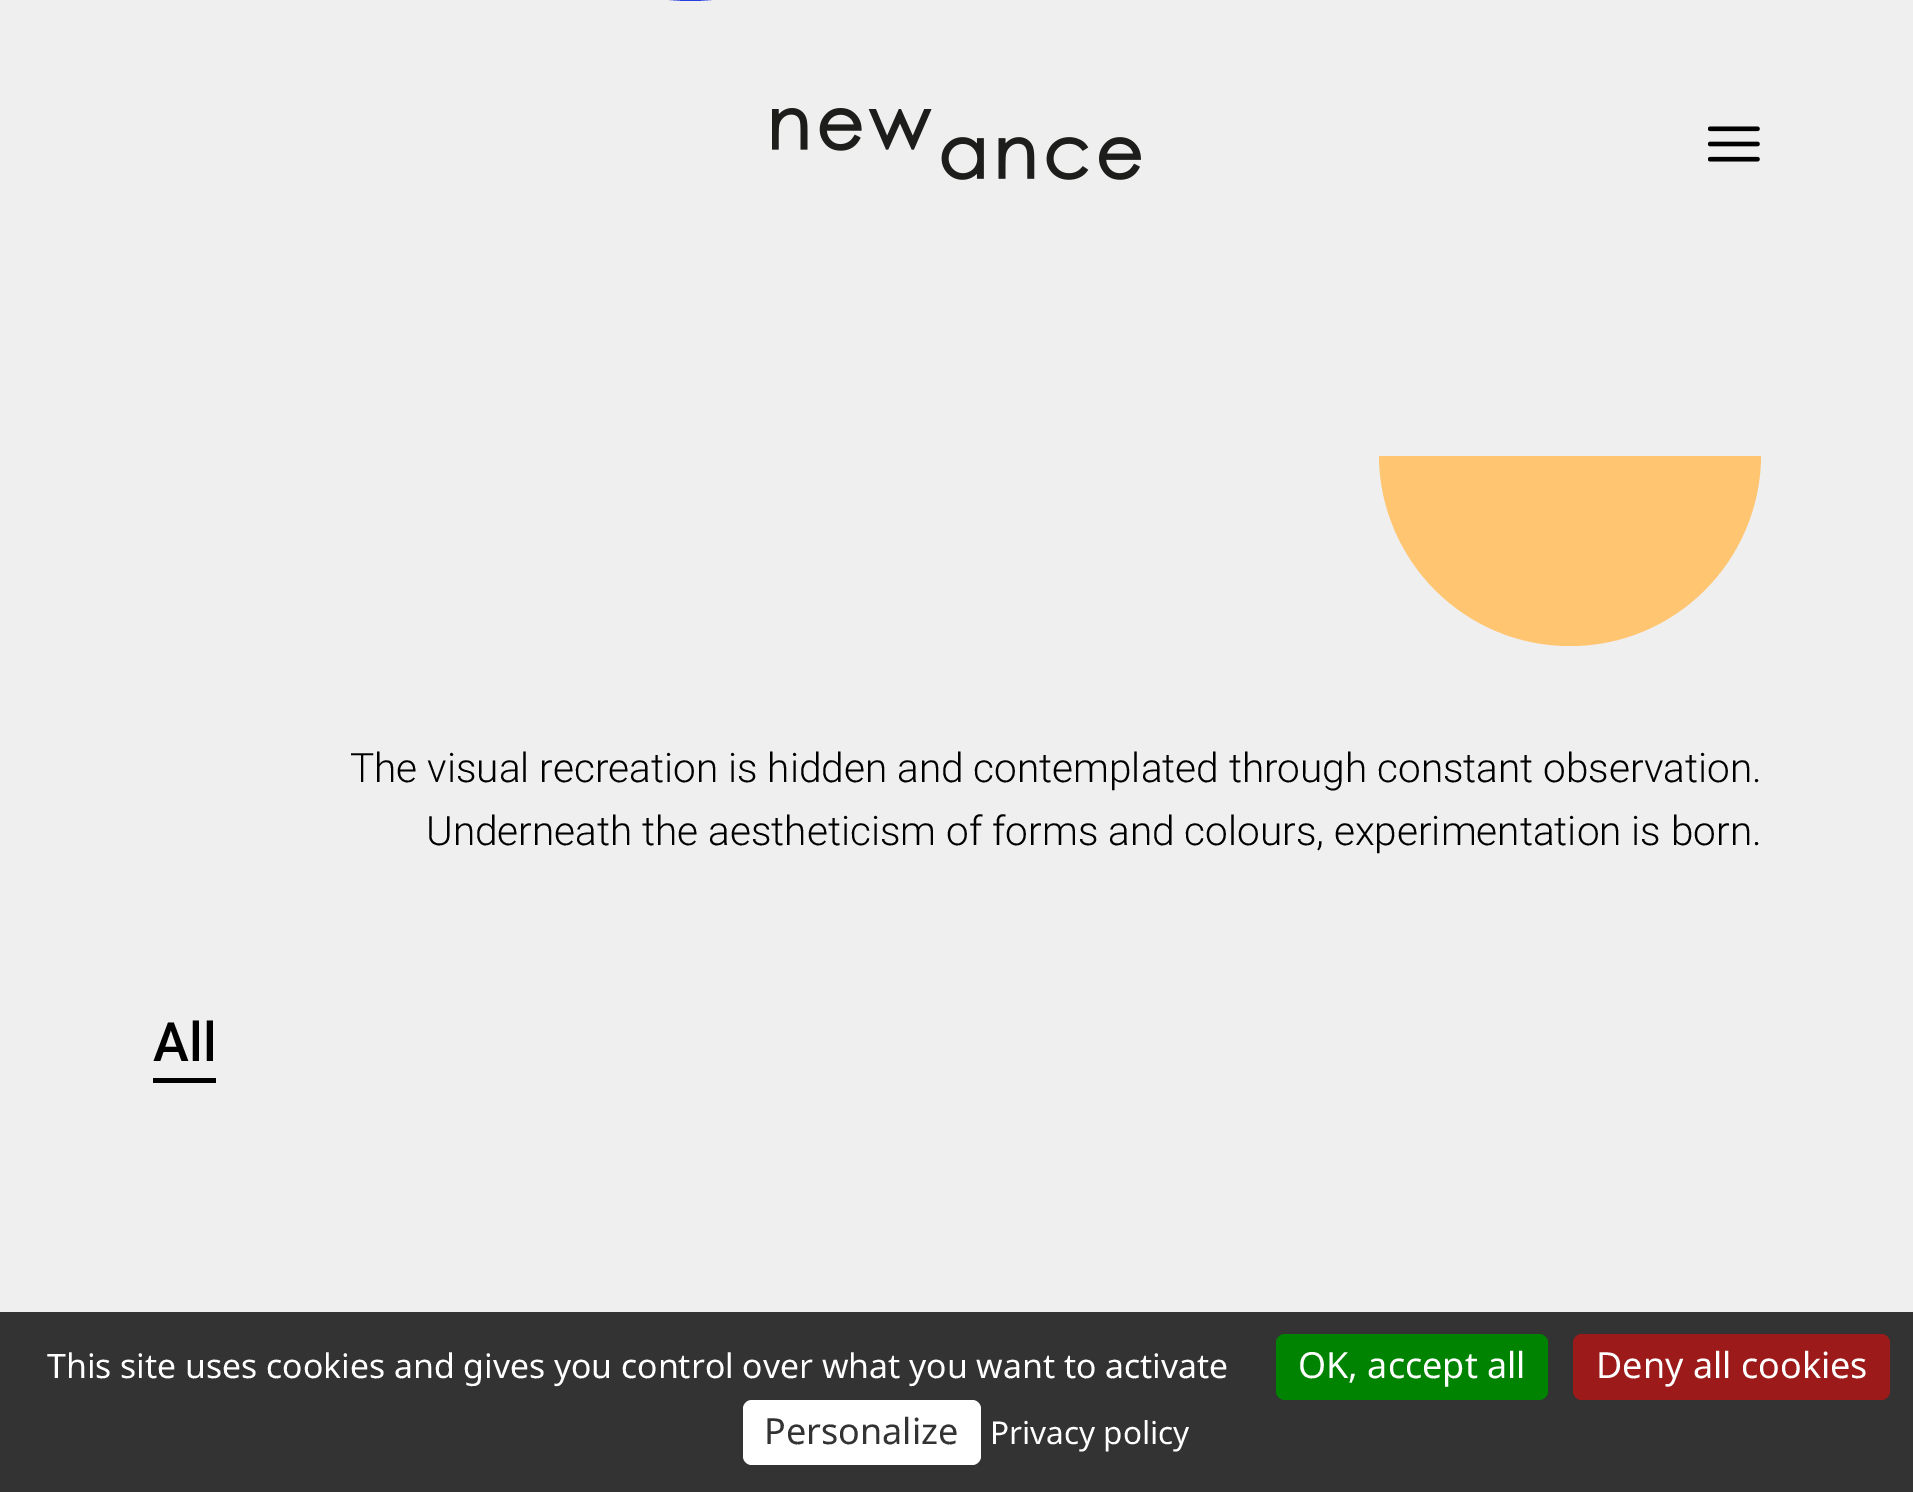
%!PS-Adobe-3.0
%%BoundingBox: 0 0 1913 1492
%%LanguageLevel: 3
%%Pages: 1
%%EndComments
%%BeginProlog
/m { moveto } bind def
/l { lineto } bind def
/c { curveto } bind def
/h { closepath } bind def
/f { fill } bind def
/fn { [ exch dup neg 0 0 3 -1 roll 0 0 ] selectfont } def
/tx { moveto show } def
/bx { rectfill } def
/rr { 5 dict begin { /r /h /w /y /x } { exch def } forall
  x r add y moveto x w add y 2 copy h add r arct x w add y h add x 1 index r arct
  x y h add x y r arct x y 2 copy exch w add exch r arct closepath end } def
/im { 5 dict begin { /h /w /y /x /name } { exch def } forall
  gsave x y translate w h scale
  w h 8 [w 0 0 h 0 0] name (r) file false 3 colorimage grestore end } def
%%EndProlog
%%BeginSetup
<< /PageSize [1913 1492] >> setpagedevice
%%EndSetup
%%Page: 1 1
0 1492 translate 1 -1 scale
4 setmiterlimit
0.937 setgray
0 0 1913 1492 bx
(image0.raw) 772 108 369 72 im
(image1.raw) 1708 126 52 36 im
0.153 0.247 0.882 setrgbcolor
562 -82 m 490 -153 491 -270 564 -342 c 538 -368 l 454 -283 454 -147 538 -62 c 622 22 759 22 843 -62 c 821 -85 l 749 -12 633 -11 562 -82 c h f
1 0.773 0.443 setrgbcolor
1379 456 m 1380 561 1465 646 1570 646 c 1675 646 1760 561 1761 456 c h f
/Roboto-Light 40.5 fn
0 setgray
(The visual recreation is hidden and contemplated through constant observation.) 350 782 tx
(Underneath the aestheticism of forms and colours, experimentation is born.) 426 845 tx
/Roboto-Medium 54 fn
(All) 153 1061 tx
153 1078 63 5 bx
0.2 setgray
0 1312 1913 180 bx
/NotoSans-Regular 33.75 fn
1 setgray
(This site uses cookies and gives you control over what you want to activate) 47 1378 tx
0 0.514 0 setrgbcolor
1276 1334 272 66 9 rr f
/NotoSans-Regular 36 fn
1 setgray
(OK, accept all) 1298 1378 tx
0.612 0.102 0.102 setrgbcolor
1573 1334 317 66 9 rr f
1 setgray
(Deny all cookies) 1596 1378 tx
743 1400 238 65 9 rr f
0.2 setgray
(Personalize) 764 1444 tx
/NotoSans-Regular 31.5 fn
1 setgray
(Privacy policy) 990 1444 tx
showpage
%%EOF
